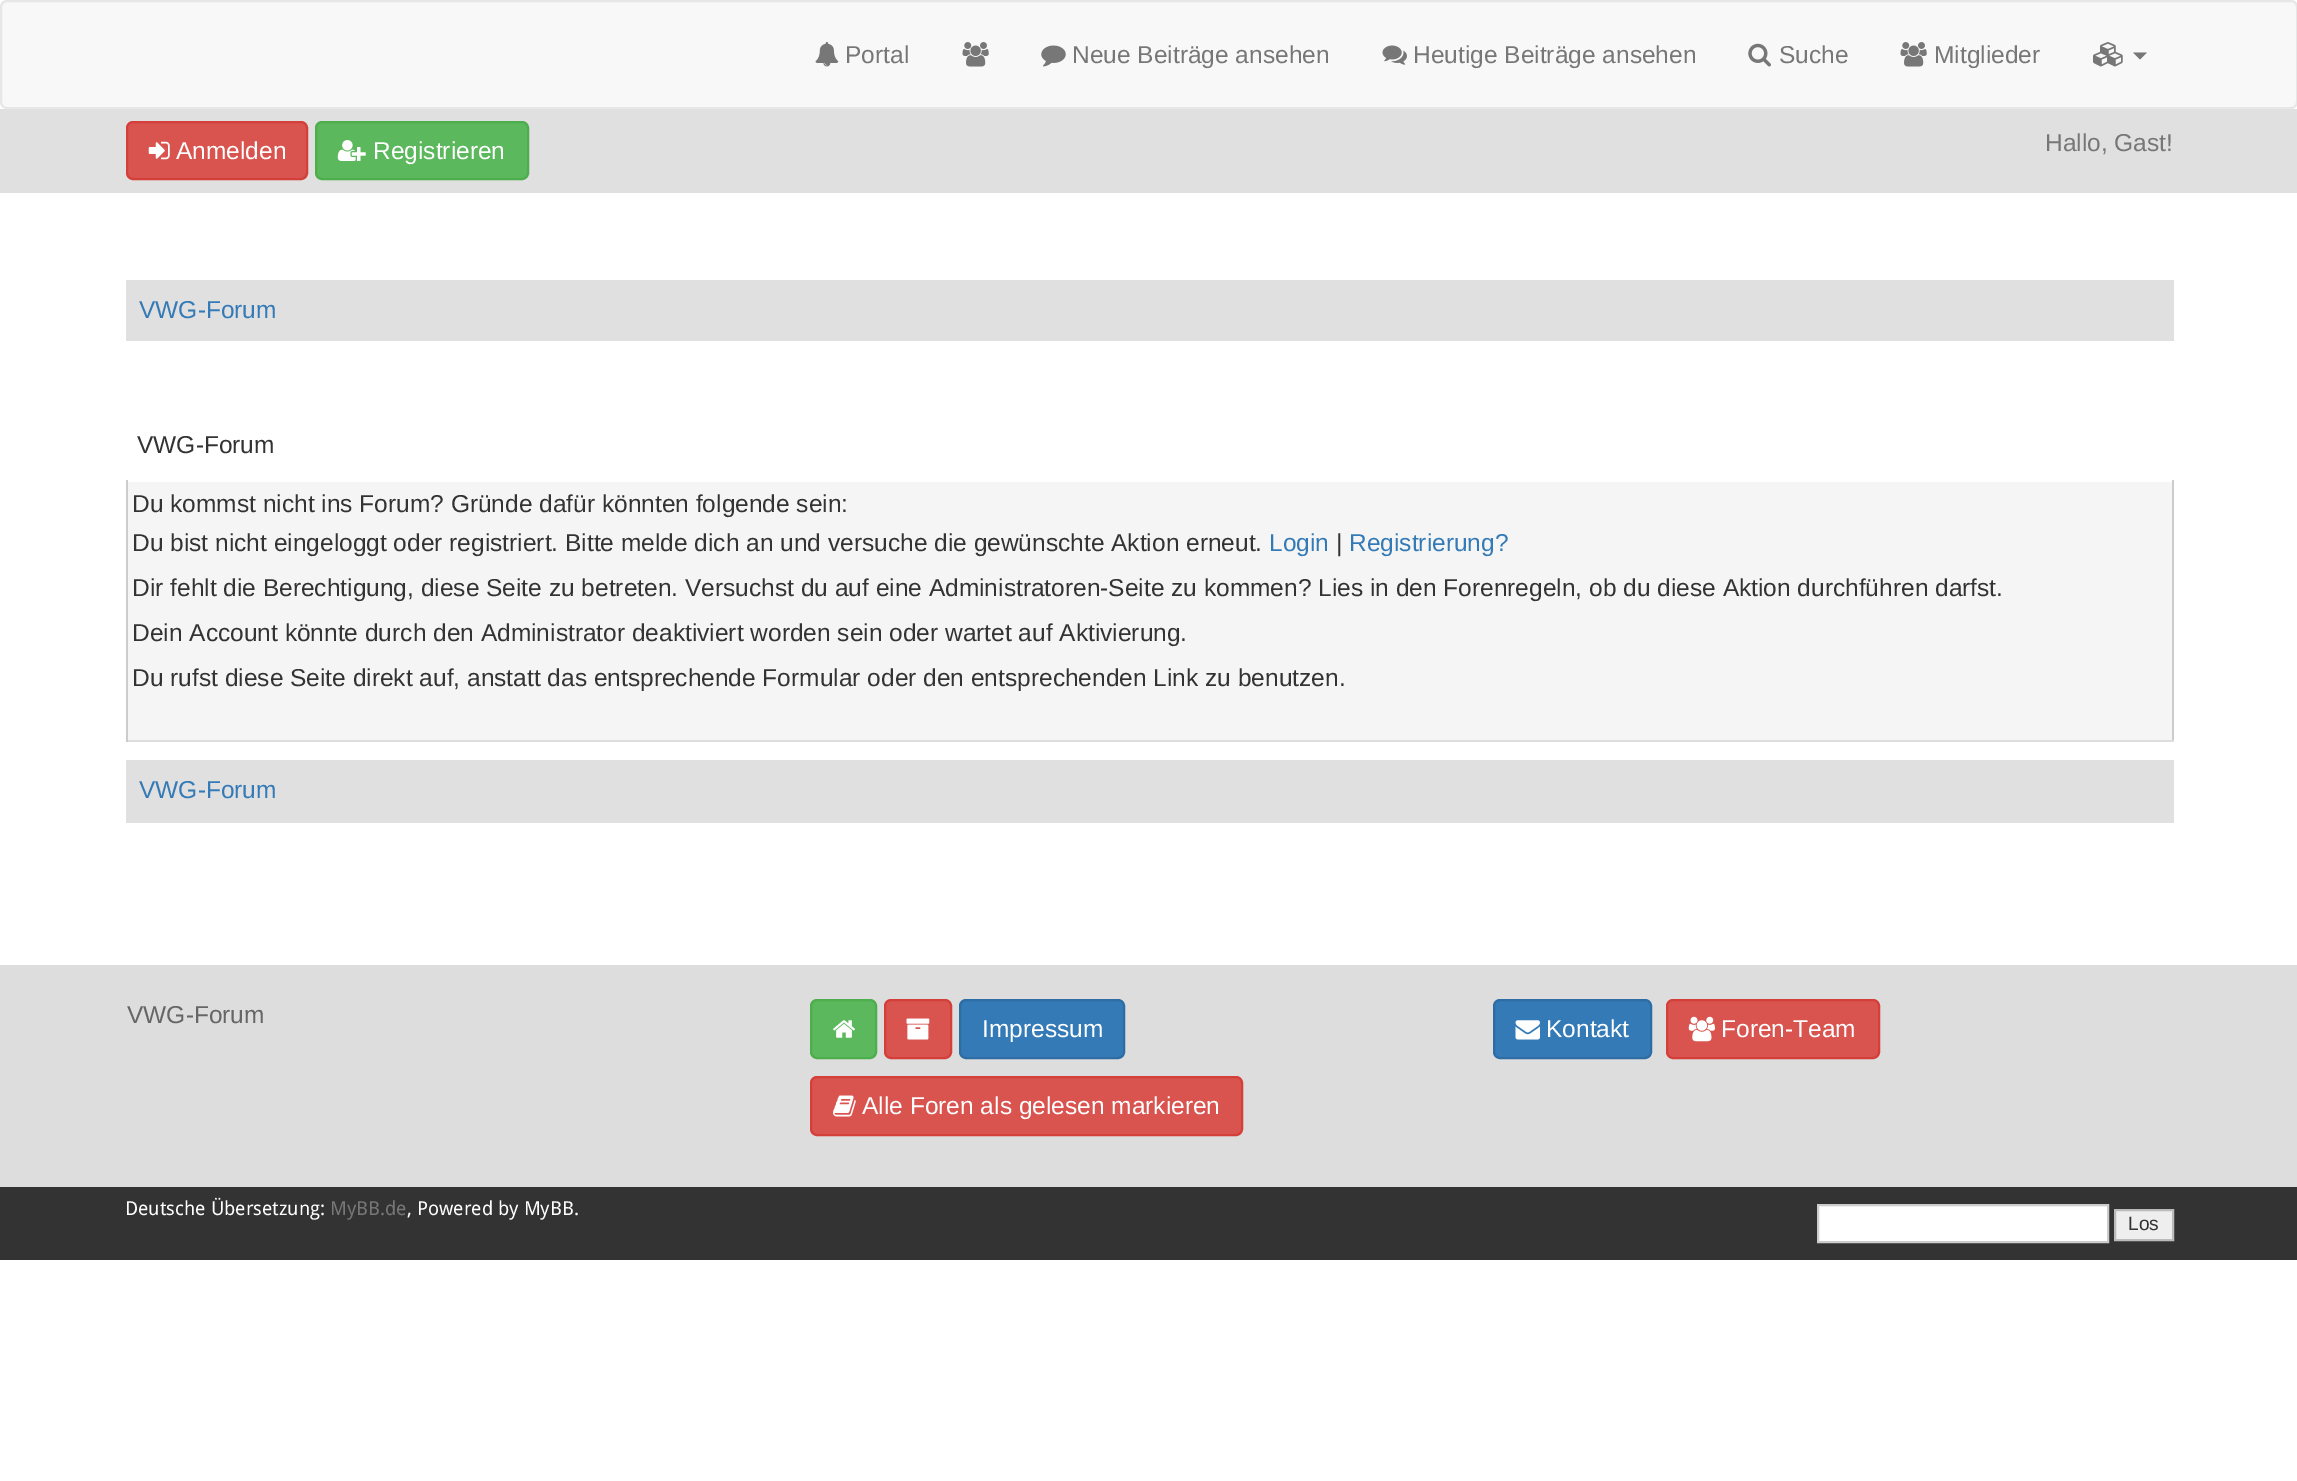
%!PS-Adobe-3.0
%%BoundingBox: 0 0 2297 1481
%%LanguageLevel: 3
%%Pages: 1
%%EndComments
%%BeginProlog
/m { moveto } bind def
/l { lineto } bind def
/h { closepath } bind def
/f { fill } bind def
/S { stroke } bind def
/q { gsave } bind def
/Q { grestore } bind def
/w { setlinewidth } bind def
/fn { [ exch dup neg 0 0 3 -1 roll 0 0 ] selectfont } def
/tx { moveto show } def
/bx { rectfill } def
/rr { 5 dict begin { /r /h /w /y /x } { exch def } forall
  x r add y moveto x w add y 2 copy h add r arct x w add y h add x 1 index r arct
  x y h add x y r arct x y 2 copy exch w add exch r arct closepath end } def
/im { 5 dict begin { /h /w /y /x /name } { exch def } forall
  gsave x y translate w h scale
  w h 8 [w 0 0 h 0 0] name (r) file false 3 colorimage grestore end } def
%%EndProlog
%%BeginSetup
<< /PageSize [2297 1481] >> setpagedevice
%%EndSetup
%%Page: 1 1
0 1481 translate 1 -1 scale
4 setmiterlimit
1 setgray
0 0 2297 1481 bx
0.973 setgray
1 1 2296 107 6 rr q f Q
0.906 setgray
2 w
S
(image0.raw) 815 42 24 25 im
/LiberationSans-Regular 24.5 fn
0.467 setgray
(Portal) 845 63 tx
(image1.raw) 962 42 27 25 im
(image2.raw) 1041 45 25 22 im
(Neue Beiträge ansehen) 1072 63 tx
(image3.raw) 1382 45 25 20 im
(Heutige Beiträge ansehen) 1413 63 tx
(image4.raw) 1748 43 23 24 im
(Suche) 1779 63 tx
(image1.raw) 1900 42 27 25 im
(Mitglieder) 1934 63 tx
(image5.raw) 2093 42 30 25 im
2133 52.5 m 2147 52.5 l 2140 59.5 l h f
0.878 setgray
0 109 2297 84 bx
0.851 0.325 0.31 setrgbcolor
127 122 180 57 6 rr q f Q
0.831 0.247 0.227 setrgbcolor
S
(image6.raw) 148 141 22 19 im
1 setgray
(Anmelden) 176 159 tx
0.361 0.722 0.361 setrgbcolor
316 122 212 57 6 rr q f Q
0.298 0.682 0.298 setrgbcolor
S
(image7.raw) 337 140 29 21 im
1 setgray
(Registrieren) 373 159 tx
0.467 setgray
(Hallo, Gast!) 2045 151 tx
0.878 setgray
126 280 2048 61 bx
0.2 0.478 0.718 setrgbcolor
(VWG-Forum) 139 318 tx
0.2 setgray
(VWG-Forum) 137 453 tx
0.961 setgray
128 482 2044 258 bx
0.8 setgray
2172 480 2 262 bx
0.867 setgray
126 740 2048 2 bx
0.8 setgray
126 480 2 262 bx
0.2 setgray
(Du kommst nicht ins Forum? Gründe dafür könnten folgende sein:) 132 512 tx
(Du bist nicht eingeloggt oder registriert. Bitte melde dich an und versuche die gewünschte Aktion erneut.) 132 551 tx
0.2 0.478 0.718 setrgbcolor
(Login) 1269 551 tx
0.2 setgray
(|) 1336 551 tx
0.2 0.478 0.718 setrgbcolor
(Registrierung?) 1349 551 tx
0.2 setgray
(Dir fehlt die Berechtigung, diese Seite zu betreten. Versuchst du auf eine Administratoren-Seite zu kommen? Lies in den Forenregeln, ob du diese Aktion durchführen darfst.) 132 596 tx
(Dein Account könnte durch den Administrator deaktiviert worden sein oder wartet auf Aktivierung.) 132 641 tx
(Du rufst diese Seite direkt auf, anstatt das entsprechende Formular oder den entsprechenden Link zu benutzen.) 132 686 tx
0.878 setgray
126 760 2048 63 bx
0.2 0.478 0.718 setrgbcolor
(VWG-Forum) 139 798 tx
0.867 setgray
0 965 2297 222 bx
0.4 setgray
(VWG-Forum) 127 1023 tx
0.361 0.722 0.361 setrgbcolor
811 1000 65 58 6 rr q f Q
0.298 0.682 0.298 setrgbcolor
S
(image8.raw) 833 1020 22 18 im
0.851 0.325 0.31 setrgbcolor
885 1000 66 58 6 rr q f Q
0.831 0.247 0.227 setrgbcolor
S
(image9.raw) 906 1018 24 22 im
0.2 0.478 0.718 setrgbcolor
960 1000 164 58 6 rr q f Q
0.18 0.427 0.643 setrgbcolor
S
1 setgray
(Impressum) 982 1037 tx
0.851 0.325 0.31 setrgbcolor
811 1077 431 58 6 rr q f Q
0.831 0.247 0.227 setrgbcolor
S
(image10.raw) 833 1095 23 22 im
1 setgray
(Alle Foren als gelesen markieren) 862 1114 tx
0.2 0.478 0.718 setrgbcolor
1494 1000 157 58 6 rr q f Q
0.18 0.427 0.643 setrgbcolor
S
(image11.raw) 1515 1020 25 20 im
1 setgray
(Kontakt) 1546 1037 tx
0.851 0.325 0.31 setrgbcolor
1667 1000 212 58 6 rr q f Q
0.831 0.247 0.227 setrgbcolor
S
(image12.raw) 1688 1016 27 26 im
1 setgray
(Foren-Team) 1721 1037 tx
0.2 setgray
0 1187 2297 73 bx
/DroidSans-Regular 19.25 fn
1 setgray
(Deutsche Übersetzung:) 125 1215 tx
0.467 setgray
(MyBB.de) 330 1215 tx
1 setgray
(, Powered by MyBB.) 407 1215 tx
1818 1205 m 2108 1205 l 2108 1242 l 1818 1242 l h q f Q
0.8 setgray
S
0.933 setgray
2115 1210 m 2173 1210 l 2173 1240 l 2115 1240 l h q f Q
0.733 setgray
S
/LiberationSans-Regular 19.25 fn
0.2 setgray
(Los) 2128 1230 tx
showpage
%%EOF
